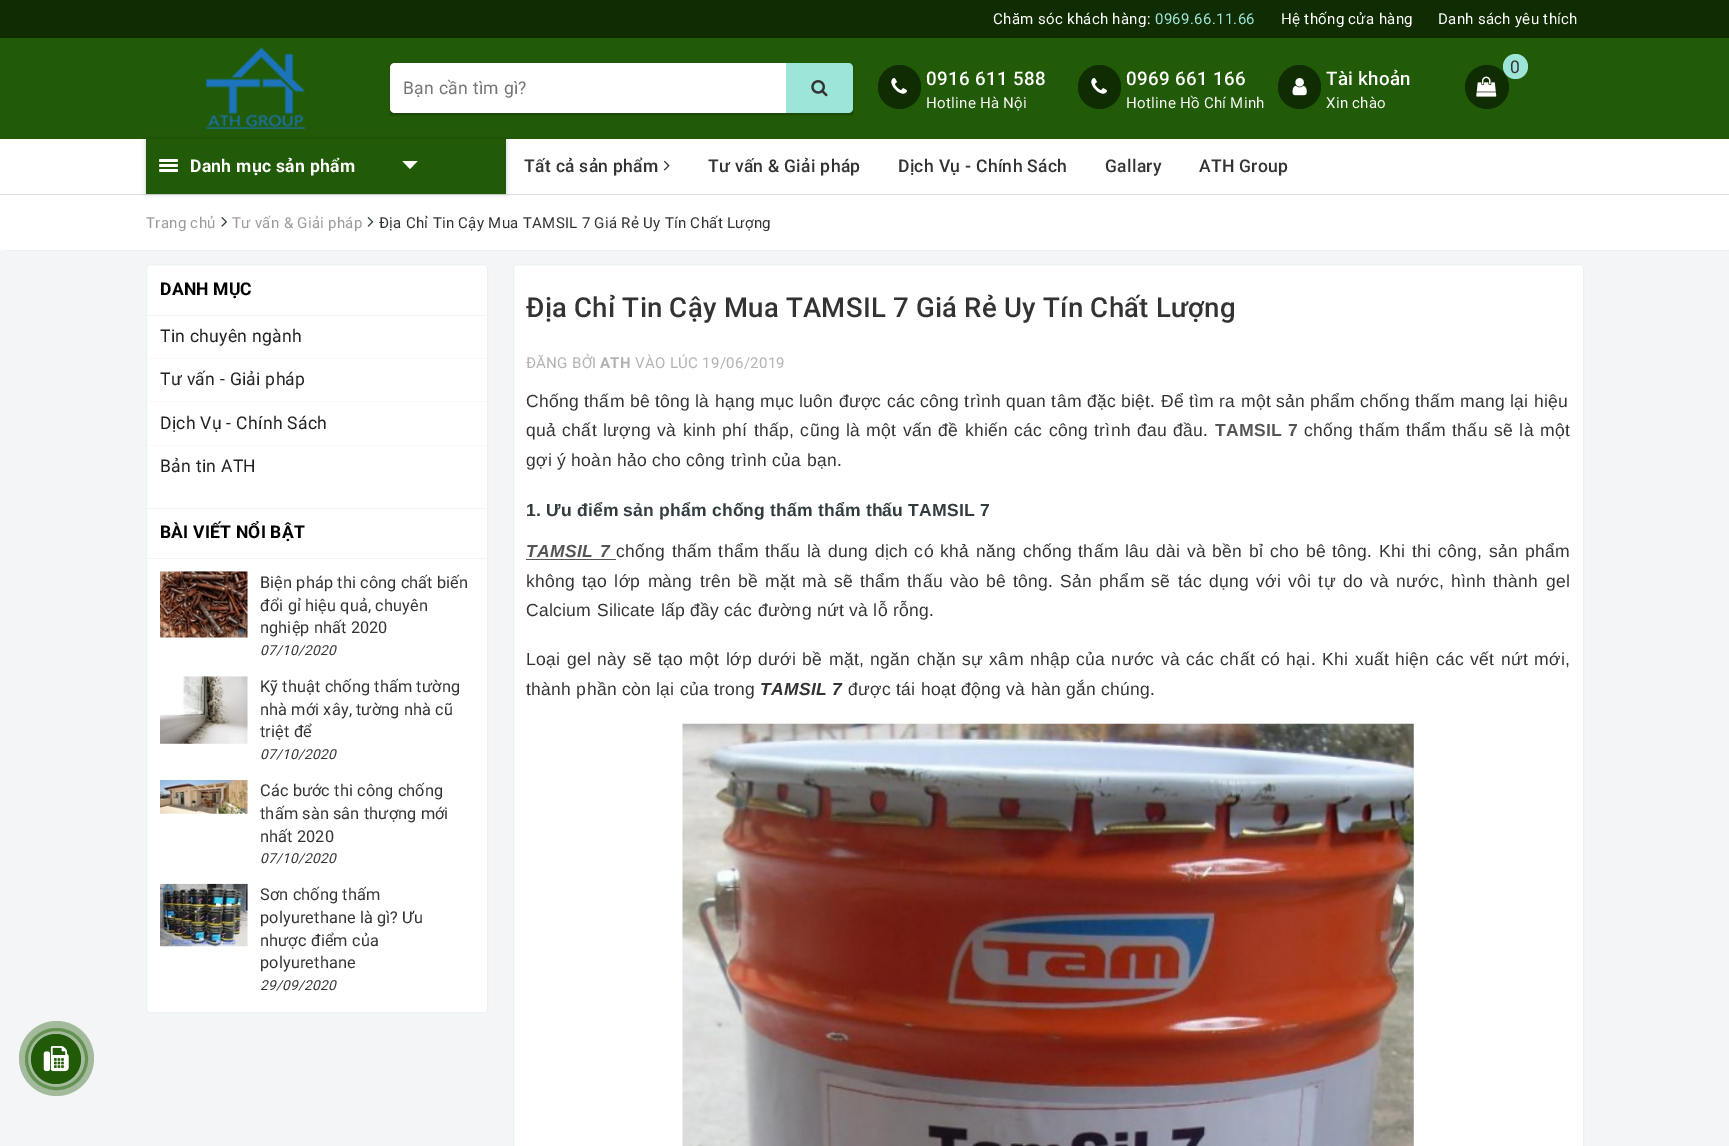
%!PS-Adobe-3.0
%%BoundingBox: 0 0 1729 1146
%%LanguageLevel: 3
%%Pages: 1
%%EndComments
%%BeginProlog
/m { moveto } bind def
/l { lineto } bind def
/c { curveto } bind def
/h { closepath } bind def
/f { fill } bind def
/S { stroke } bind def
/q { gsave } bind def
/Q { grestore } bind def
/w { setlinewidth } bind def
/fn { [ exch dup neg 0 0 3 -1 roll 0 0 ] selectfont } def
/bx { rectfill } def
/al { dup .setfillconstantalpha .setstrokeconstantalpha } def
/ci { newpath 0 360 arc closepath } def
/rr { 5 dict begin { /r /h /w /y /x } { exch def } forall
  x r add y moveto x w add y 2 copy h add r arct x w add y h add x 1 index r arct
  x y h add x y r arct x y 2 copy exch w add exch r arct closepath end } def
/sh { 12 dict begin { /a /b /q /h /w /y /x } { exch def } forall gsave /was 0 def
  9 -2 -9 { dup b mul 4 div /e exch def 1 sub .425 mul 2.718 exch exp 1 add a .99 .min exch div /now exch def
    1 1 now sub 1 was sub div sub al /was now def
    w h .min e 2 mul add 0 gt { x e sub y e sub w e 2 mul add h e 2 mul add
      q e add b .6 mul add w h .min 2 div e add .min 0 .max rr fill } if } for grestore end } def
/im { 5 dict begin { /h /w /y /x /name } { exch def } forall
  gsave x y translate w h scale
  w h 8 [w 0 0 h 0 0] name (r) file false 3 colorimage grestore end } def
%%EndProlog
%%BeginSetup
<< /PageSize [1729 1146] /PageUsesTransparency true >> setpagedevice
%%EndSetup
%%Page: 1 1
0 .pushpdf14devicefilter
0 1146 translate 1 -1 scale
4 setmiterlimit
0.953 0.961 0.969 setrgbcolor
0 0 1729 1146 bx
0.129 0.357 0.027 setrgbcolor
0 38 1729 101 bx
0.063 0.173 0.012 setrgbcolor
0 0 1729 38 bx
/Roboto-Regular 15 fn
1 setgray
993 24 m 0.31 0 (Chăm sóc khách hàng:) ashow
0.616 0.894 0.851 setrgbcolor
1155 24 m 0.31 0 (0969.66.11.66) ashow
1 setgray
1281 24 m 0.31 0 (Hệ thống cửa hàng) ashow
1438 24 m 0.31 0 (Danh sách yêu thích) ashow
(image0.raw) 206 47 99 82 im
0 setgray
390 65 463 50 0 1 0.24 sh
1 setgray
395 63 m 788 63 l 788 113 l 395 113 l 392 113 390 111 390 108 c 390 68 l 390 65 392 63 395 63 c h f
/Roboto-Regular 17.5 fn
0.459 setgray
403 94 m 0.31 0 (Bạn cần tìm gì?) ashow
0.616 0.894 0.851 setrgbcolor
786 63 m 848 63 l 851 63 853 65 853 68 c 853 108 l 853 111 851 113 848 113 c 786 113 l h f
(image1.raw) 811 80 17 17 im
0.063 0.173 0.012 setrgbcolor
1487 87 22 ci f
(image2.raw) 1476 76 21 21 im
0.616 0.894 0.851 setrgbcolor
1515.5 66.5 12.5 ci f
0.2 setgray
1510 73 m 0.31 0 (0) ashow
0.063 0.173 0.012 setrgbcolor
878 65 43 44 21.5 rr f
(image3.raw) 891 78 16 16 im
/Roboto-Medium 18.75 fn
1 setgray
926 85 m 0.31 0 (0916 611 588) ashow
/Roboto-Regular 15 fn
0.969 setgray
926 108 m 0.31 0 (Hotline Hà Nội) ashow
0.063 0.173 0.012 setrgbcolor
1078 65 43 44 21.5 rr f
(image3.raw) 1091 78 16 16 im
/Roboto-Medium 18.75 fn
1 setgray
1126 85 m 0.31 0 (0969 661 166) ashow
/Roboto-Regular 15 fn
0.969 setgray
1126 108 m 0.31 0 (Hotline Hồ Chí Minh) ashow
0.063 0.173 0.012 setrgbcolor
1278 65 43 44 21.5 rr f
(image4.raw) 1292 78 15 18 im
/Roboto-Medium 18.75 fn
1 setgray
1326 85 m 0.31 0 (Tài khoản) ashow
/Roboto-Regular 15 fn
0.969 setgray
1326 108 m 0.31 0 (Xin chào) ashow
1 setgray
0 139 1729 55 bx
0.867 setgray
0 194 1729 1 bx
1 setgray
0 195 m 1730 195 l 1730 247 l 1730 249 1728 251 1726 251 c 4 251 l 2 251 0 249 0 247 c h f
0 setgray
146 139 360 55 0 2.5 0.2 sh
0.129 0.357 0.027 setrgbcolor
146 139 360 55 bx
1 setgray
159 159 19 3 1.5 rr f
159 164 19 3 1.5 rr f
159 169 19 3 1.5 rr f
/Roboto-Bold 17.5 fn
190 172 m 0.31 0 (Danh mục sản phẩm) ashow
402.5 161 m 417.5 161 l 410 169 l h f
/Roboto-Medium 17.5 fn
0.2 setgray
524 172 m 0.31 0 (Tất cả sản phẩm) ashow
(image5.raw) 663 160 7 11 im
708 172 m 0.31 0 (Tư vấn & Giải pháp) ashow
898 172 m 0.31 0 (Dịch Vụ - Chính Sách) ashow
1105 172 m 0.31 0 (Gallary) ashow
1199 172 m 0.31 0 (ATH Group) ashow
0.925 0.949 0.957 setrgbcolor
3 250 1726 1 bx
/Roboto-Regular 15 fn
0.608 setgray
146 228 m 0.31 0 (Trang chủ) ashow
(image6.raw) 221 217 6 10 im
232 228 m 0.31 0 (Tư vấn & Giải pháp) ashow
(image7.raw) 367 217 7 10 im
0.2 setgray
379 228 m 0.31 0 (Địa Chỉ Tin Cậy Mua TAMSIL 7 Giá Rẻ Uy Tín Chất Lượng) ashow
1 setgray
146.5 264.5 341 748 3.5 rr q f Q
0.925 0.949 0.957 setrgbcolor
S
0.953 setgray
148 315 338 1 bx
/Roboto-Bold 17.5 fn
0 setgray
160 295 m 0.2 0 (DANH MỤC) ashow
0.973 setgray
148 358 338 1 bx
/Roboto-Regular 17.5 fn
0.133 setgray
160 342 m 0.31 0 (Tin chuyên ngành) ashow
0.973 setgray
148 401 338 1 bx
0.133 setgray
160 385 m 0.31 0 (Tư vấn - Giải pháp) ashow
0.973 setgray
148 445 338 1 bx
0.133 setgray
160 429 m 0.31 0 (Dịch Vụ - Chính Sách) ashow
160 472 m 0.31 0 (Bản tin ATH) ashow
0.953 setgray
148 508 338 1 bx
148 558 338 1 bx
/Roboto-Bold 17.5 fn
0 setgray
160 538 m 0.2 0 (BÀI VIẾT NỔI BẬT) ashow
(image8.raw) 160 571 88 67 im
/Roboto-Regular 16.25 fn
0.2 setgray
260 588 m 0.15 0 (Biện pháp thi công chất biến) ashow
260 611 m 0.15 0 (đổi gỉ hiệu quả, chuyên) ashow
260 633 m 0.15 0 (nghiệp nhất 2020) ashow
/Roboto-Italic 13.75 fn
260 655 m 0.31 0 (07/10/2020) ashow
(image9.raw) 160 676 88 68 im
/Roboto-Regular 16.25 fn
260 692 m 0.15 0 (Kỹ thuật chống thấm tường) ashow
260 715 m 0.15 0 (nhà mới xây, tường nhà cũ) ashow
260 737 m 0.15 0 (triệt để) ashow
/Roboto-Italic 13.75 fn
260 759 m 0.31 0 (07/10/2020) ashow
(image10.raw) 160 780 88 34 im
/Roboto-Regular 16.25 fn
260 796 m 0.15 0 (Các bước thi công chống) ashow
260 819 m 0.15 0 (thấm sàn sân thượng mới) ashow
260 842 m 0.15 0 (nhất 2020) ashow
/Roboto-Italic 13.75 fn
260 863 m 0.31 0 (07/10/2020) ashow
(image11.raw) 160 883 88 64 im
/Roboto-Regular 16.25 fn
260 900 m 0.15 0 (Sơn chống thấm) ashow
260 923 m 0.15 0 (polyurethane là gì? Ưu) ashow
260 946 m 0.15 0 (nhược điểm của) ashow
260 968 m 0.15 0 (polyurethane) ashow
/Roboto-Italic 13.75 fn
260 990 m 0.31 0 (29/09/2020) ashow
1 setgray
513.5 264.5 1070 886 3.5 rr q f Q
0.925 0.949 0.957 setrgbcolor
S
/Roboto-Medium 27.5 fn
0.2 setgray
526 317 m 0.28 0 (Địa Chỉ Tin Cậy Mua TAMSIL 7 Giá Rẻ Uy Tín Chất Lượng) ashow
/Roboto-Regular 15 fn
0.698 setgray
526 368 m 0.31 0 (ĐĂNG BỞI) ashow
/Roboto-Bold 15 fn
600 368 m 0.31 0 (ATH) ashow
/Roboto-Regular 15 fn
635 368 m 0.31 0 (VÀO LÚC 19/06/2019) ashow
/LiberationSans-Regular 17.5 fn
0.2 setgray
526 407 m 0.31 0 (Chống thấm bê tông là hạng mục luôn được các công trình quan tâm đặc biệt. Để tìm ra một sản phẩm chống thấm mang lại hiệu) ashow
526 436 m 1.1 0 32 0.31 0 (quả chất lượng và kinh phí thấp, cũng là một vấn đề khiến các công trình đau đầu.) awidthshow
/LiberationSans-Bold 17.5 fn
0.341 0.329 0.329 setrgbcolor
1215 436 m 1 0 32 0.31 0 (TAMSIL 7) awidthshow
/LiberationSans-Regular 17.5 fn
0.2 setgray
1304 436 m 1.1 0 32 0.31 0 (chống thấm thẩm thấu) awidthshow
1494 436 m 1.1 0 32 0.31 0 (sẽ là một) awidthshow
526 466 m 0.31 0 (gợi ý hoàn hảo cho công trình của bạn.) ashow
/LiberationSans-Bold 17.5 fn
0.196 0.235 0.247 setrgbcolor
526 516 m 0.2 0 (1. Ưu điểm sản phẩm chống thấm thẩm thấu TAMSIL 7) ashow
/LiberationSans-BoldItalic 17.5 fn
0.341 0.329 0.329 setrgbcolor
526 557 m 1.4 0 32 0.31 0 (TAMSIL 7) awidthshow
/LiberationSans-Regular 17.5 fn
0.2 setgray
616 557 m 1.4 0 32 0.31 0 (chống thấm thẩm thấu là dung dịch có khả năng chống thấm lâu dài và bền bỉ cho bê tông. Khi thi công, sản phẩm) awidthshow
0.341 0.329 0.329 setrgbcolor
526 559 90 1 bx
0.2 setgray
526 587 m 1.85 0 32 0.31 0 (không tạo lớp màng trên bề mặt mà sẽ thẩm thấu vào bê tông. Sản phẩm sẽ tác dụng với vôi tự do và nước, hình thành gel) awidthshow
526 616 m 0.31 0 (Calcium Silicate lấp đầy các đường nứt và lỗ rỗng.) ashow
526 665 m 1.1 0 32 0.31 0 (Loại gel này sẽ tạo một lớp dưới bề mặt, ngăn chặn sự xâm nhập của nước và các chất có hại. Khi xuất hiện các vết nứt mới,) awidthshow
526 695 m 0.31 0 (thành phần còn lại của trong) ashow
/LiberationSans-BoldItalic 17.5 fn
760 695 m 0.31 0 (TAMSIL 7) ashow
/LiberationSans-Regular 17.5 fn
848 695 m 0.31 0 (được tái hoạt động và hàn gắn chúng.) ashow
(image12.raw) 682 723 732 423 im
0.561 0.706 0.502 setrgbcolor
3 w
26.5 1029.5 60 59 29.5 rr S
0.38 al
0.129 0.357 0.027 setrgbcolor
56.5 1058.5 37.5 ci f
1 al
56 1059 25 ci f
(image13.raw) 43 1046 26 26 im
.poppdf14devicefilter showpage
%%EOF
